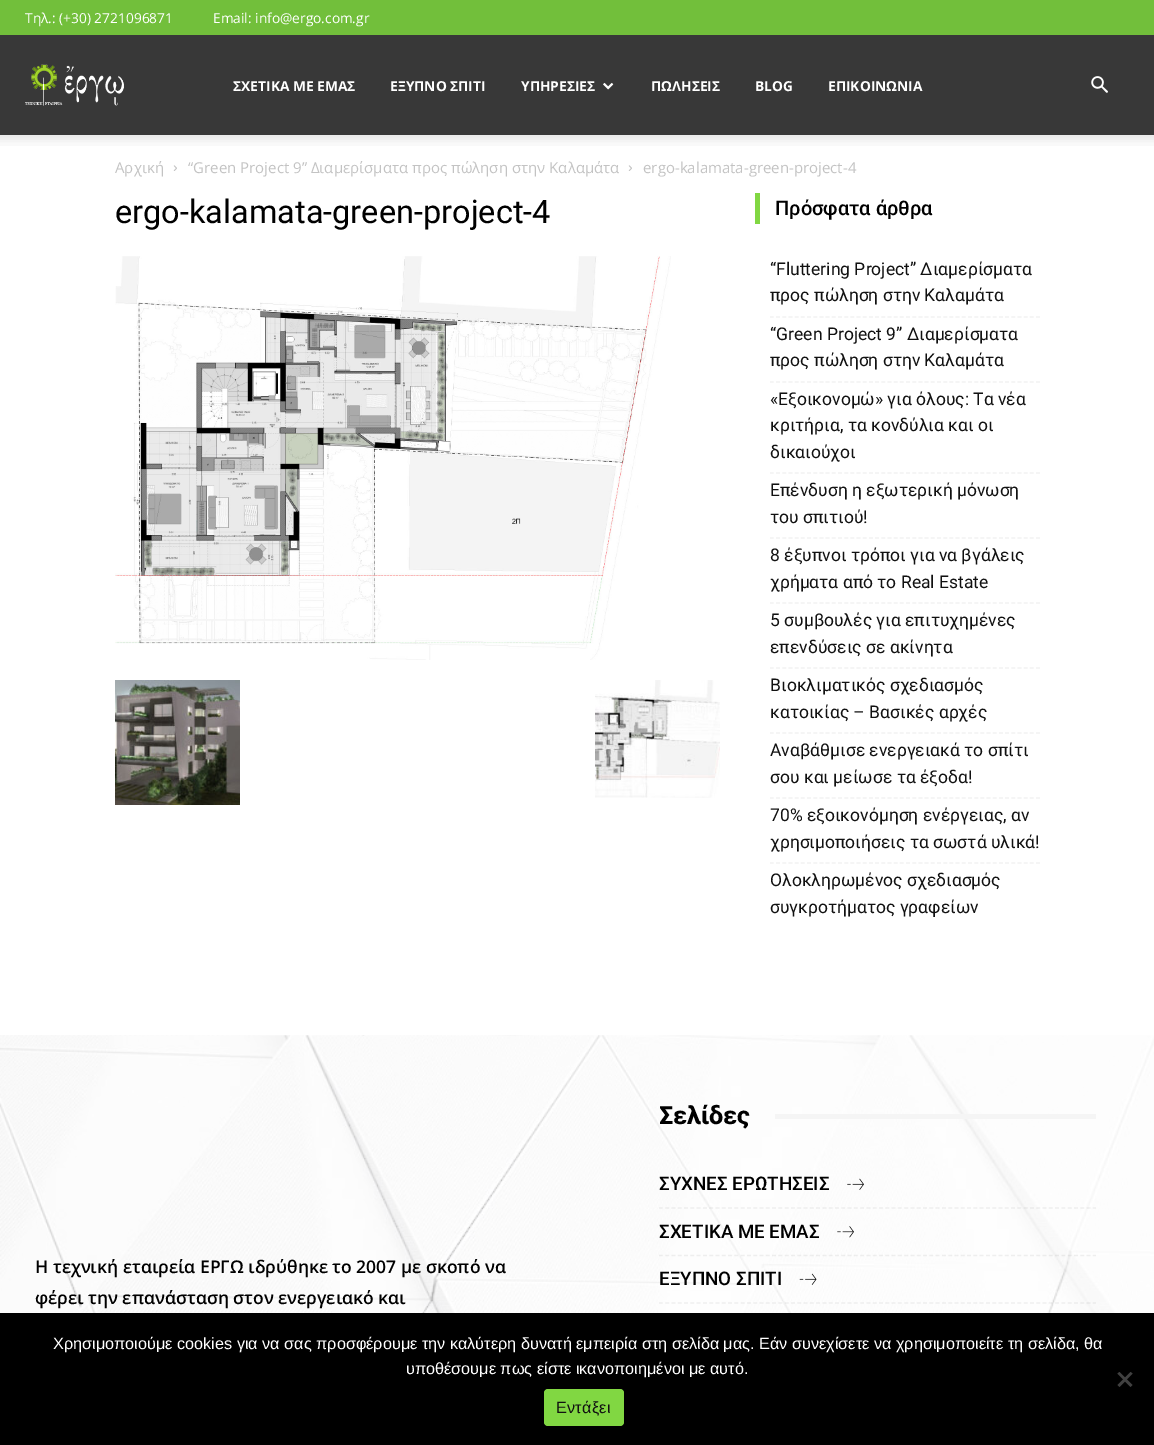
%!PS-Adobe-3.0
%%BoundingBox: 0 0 1154 1445
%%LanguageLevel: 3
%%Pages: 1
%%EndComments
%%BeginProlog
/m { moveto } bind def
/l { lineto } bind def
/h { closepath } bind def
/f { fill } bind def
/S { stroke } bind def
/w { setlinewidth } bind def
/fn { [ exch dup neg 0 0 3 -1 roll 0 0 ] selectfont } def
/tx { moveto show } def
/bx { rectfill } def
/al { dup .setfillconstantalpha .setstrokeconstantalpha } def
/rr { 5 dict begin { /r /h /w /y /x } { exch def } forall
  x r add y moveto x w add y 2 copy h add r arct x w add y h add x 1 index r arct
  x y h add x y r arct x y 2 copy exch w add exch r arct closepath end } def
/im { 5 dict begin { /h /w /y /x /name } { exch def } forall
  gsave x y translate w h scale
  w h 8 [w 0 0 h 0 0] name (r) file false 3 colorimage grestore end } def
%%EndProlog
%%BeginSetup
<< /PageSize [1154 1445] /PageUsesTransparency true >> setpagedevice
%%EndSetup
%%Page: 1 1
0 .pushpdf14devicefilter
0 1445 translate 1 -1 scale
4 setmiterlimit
1 setgray
0 0 1154 1445 bx
0.447 0.749 0.231 setrgbcolor
0 0 1154 35 bx
/OpenSans-Regular 13.75 fn
1 setgray
(Τηλ.: \(+30\) 2721096871) 25 23 tx
(Email: info@ergo.com.gr) 213 23 tx
0.22 setgray
0 35 1154 100 bx
(image0.raw) 25 64 99 42 im
/OpenSans-Bold 13.75 fn
1 setgray
(ΣΧΕΤΙΚΑ ΜΕ ΕΜΑΣ) 233 91 tx
(ΕΞΥΠΝΟ ΣΠΙΤΙ) 390 91 tx
(ΥΠΗΡΕΣΙΕΣ) 521 91 tx
(image1.raw) 603 82 11 8 im
(ΠΩΛΗΣΕΙΣ) 651 91 tx
(BLOG) 755 91 tx
(ΕΠΙΚΟΙΝΩΝΙΑ) 828 91 tx
(image2.raw) 1091 76 17 17 im
(image3.raw) 0 135 1154 11 im
/OpenSans-Regular 15 fn
0.765 setgray
(Αρχική) 115 173 tx
(image4.raw) 173 165 4 6 im
(“Green Project 9” Διαμερίσματα προς πώληση στην Καλαμάτα) 188 173 tx
(image4.raw) 628 165 4 6 im
(ergo-kalamata-green-project-4) 643 173 tx
/Roboto-Regular 32.5 fn
0 setgray
(ergo-kalamata-green-project-4) 115 223 tx
(image5.raw) 115 256 556 404 im
(image6.raw) 115 680 125 125 im
(image7.raw) 595 680 125 118 im
0.506 0.843 0.259 setrgbcolor
755 193 5 31 bx
/Roboto-Medium 20 fn
0 setgray
(Πρόσφατα άρθρα) 775 215 tx
0.945 setgray
1.2 w
[3.75 2.44] 0 setdash
770 317 m 1040 317 l S
/Roboto-Regular 17.5 fn
0.067 setgray
(“Fluttering Project” Διαμερίσματα) 770 275 tx
(προς πώληση στην Καλαμάτα) 770 301 tx
0.945 setgray
770 382 m 1040 382 l S
0.067 setgray
(“Green Project 9” Διαμερίσματα) 770 340 tx
(προς πώληση στην Καλαμάτα) 770 366 tx
0.945 setgray
770 473 m 1040 473 l S
0.067 setgray
(«Εξοικονομώ» για όλους: Τα νέα) 770 405 tx
(κριτήρια, τα κονδύλια και οι) 770 431 tx
(δικαιούχοι) 770 458 tx
0.945 setgray
770 538 m 1040 538 l S
0.067 setgray
(Επένδυση η εξωτερική μόνωση) 770 496 tx
(του σπιτιού!) 770 523 tx
0.945 setgray
770 603 m 1040 603 l S
0.067 setgray
(8 έξυπνοι τρόποι για να βγάλεις) 770 561 tx
(χρήματα από το Real Estate) 770 588 tx
0.945 setgray
770 668 m 1040 668 l S
0.067 setgray
(5 συμβουλές για επιτυχημένες) 770 626 tx
(επενδύσεις σε ακίνητα) 770 653 tx
0.945 setgray
770 733 m 1040 733 l S
0.067 setgray
(Βιοκλιματικός σχεδιασμός) 770 691 tx
(κατοικίας – Βασικές αρχές) 770 718 tx
0.945 setgray
770 798 m 1040 798 l S
0.067 setgray
(Αναβάθμισε ενεργειακά το σπίτι) 770 756 tx
(σου και μείωσε τα έξοδα!) 770 783 tx
0.945 setgray
770 863 m 1040 863 l S
0.067 setgray
(70% εξοικονόμηση ενέργειας, αν) 770 821 tx
(χρησιμοποιήσεις τα σωστά υλικά!) 770 848 tx
(Ολοκληρωμένος σχεδιασμός) 770 886 tx
(συγκροτήματος γραφείων) 770 913 tx
(image8.raw) 0 1035 1154 278 im
/OpenSans-SemiBold 17.5 fn
0 setgray
(Η τεχνική εταιρεία ΕΡΓΩ ιδρύθηκε το 2007 με σκοπό να) 35 1273 tx
(φέρει την επανάσταση στον ενεργειακό και) 35 1304 tx
/Roboto-ExtraBold 25 fn
(Σελίδες) 659 1124 tx
0.961 setgray
775 1114 321 5 bx
0.06 al
0 setgray
[3.75 2.54] 0 setdash
659 1208 m 1096 1208 l S
/Roboto-Medium 18.75 fn
1 al
(ΣΥΧΝΕΣ ΕΡΩΤΗΣΕΙΣ) 659 1190 tx
(image9.raw) 847 1178 17 12 im
0.06 al
659 1255.5 m 1096 1255.5 l S
1 al
(ΣΧΕΤΙΚΑ ΜΕ ΕΜΑΣ) 659 1238 tx
(image10.raw) 837 1226 17 12 im
0.06 al
659 1303 m 1096 1303 l S
1 al
(ΕΞΥΠΝΟ ΣΠΙΤΙ) 659 1285 tx
(image11.raw) 799 1273 18 12 im
0 1313 1154 132 bx
/LiberationSans-Regular 16.25 fn
1 setgray
(Χρησιμοποιούμε cookies για να σας προσφέρουμε την καλύτερη δυνατή εμπειρία στη σελίδα μας. Εάν συνεχίσετε να χρησιμοποιείτε τη σελίδα, θα) 53 1349 tx
(υποθέσουμε πως είστε ικανοποιημένοι με αυτό.) 406 1374 tx
0.251 setgray
1130.5 1372 m 1132.5 1373.5 l 1119.5 1387 l 1117.5 1385 l h f
1117.5 1373.5 m 1119.5 1372 l 1132.5 1385 l 1130.5 1387 l h f
0.506 0.843 0.259 setrgbcolor
544 1389 80 37 4 rr f
0.067 setgray
556 1413 m 0.25 0 (Εντάξει) ashow
.poppdf14devicefilter showpage
%%EOF
